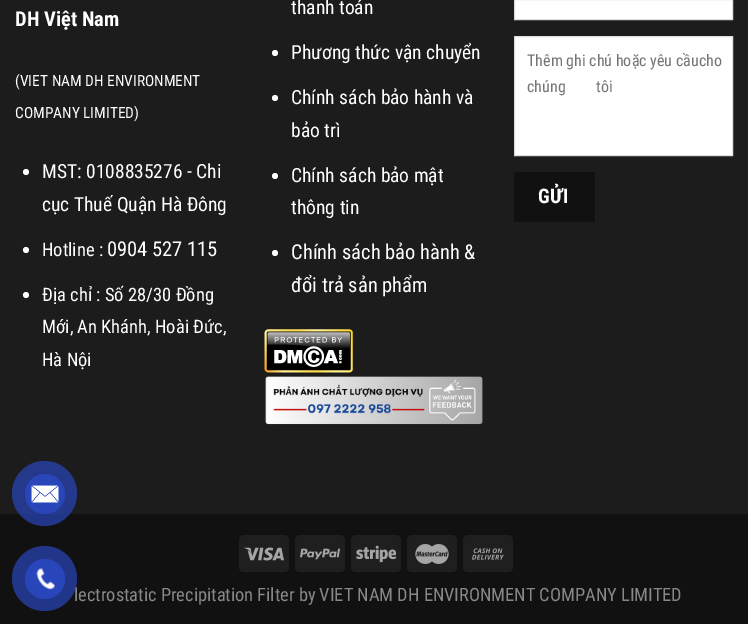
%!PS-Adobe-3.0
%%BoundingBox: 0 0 748 624
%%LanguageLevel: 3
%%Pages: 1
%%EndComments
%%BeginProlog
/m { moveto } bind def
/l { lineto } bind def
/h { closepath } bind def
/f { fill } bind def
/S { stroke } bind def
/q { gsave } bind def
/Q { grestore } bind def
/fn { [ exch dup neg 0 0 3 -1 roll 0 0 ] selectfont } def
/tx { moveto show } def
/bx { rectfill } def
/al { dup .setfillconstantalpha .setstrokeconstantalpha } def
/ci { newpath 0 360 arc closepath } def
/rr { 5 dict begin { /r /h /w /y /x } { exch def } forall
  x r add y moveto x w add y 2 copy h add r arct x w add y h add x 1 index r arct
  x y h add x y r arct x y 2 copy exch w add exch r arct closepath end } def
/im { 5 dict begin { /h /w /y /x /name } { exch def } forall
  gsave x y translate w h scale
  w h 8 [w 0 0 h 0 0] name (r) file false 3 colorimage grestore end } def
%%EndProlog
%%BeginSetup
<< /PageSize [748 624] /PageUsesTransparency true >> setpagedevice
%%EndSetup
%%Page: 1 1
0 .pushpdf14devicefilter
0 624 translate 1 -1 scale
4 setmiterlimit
0.067 setgray
0 0 748 624 bx
0.11 setgray
0 0 748 514 bx
/RobotoCondensed-Bold 20.5 fn
1 setgray
(DH Việt Nam) 15 26 tx
/RobotoCondensed-Regular 15.4 fn
(\(VIET NAM DH ENVIRONMENT) 15 86 tx
(COMPANY LIMITED\)) 15 118 tx
26 172 3 ci f
/RobotoCondensed-Regular 19.5 fn
(MST: 0108835276 - Chi) 42 178 tx
(cục Thuế Quận Hà Đông) 42 211 tx
26 250 3 ci f
/RobotoCondensed-Regular 18.5 fn
(Hotline :) 42 256 tx
/RobotoCondensed-Regular 20.5 fn
(0904 527 115) 107 256 tx
26 295 3 ci f
/RobotoCondensed-Regular 18.5 fn
(Địa chỉ : Số 28/30 Đồng) 42 301 tx
(Mới, An Khánh, Hoài Đức,) 42 333 tx
(Hà Nội) 42 366 tx
/RobotoCondensed-Regular 19.5 fn
(thanh toán) 291 14 tx
275 53 3 ci f
(Phương thức vận chuyển) 291 59 tx
275 98 3 ci f
(Chính sách bảo hành và) 291 104 tx
(bảo trì) 291 137 tx
275 176 3 ci f
(Chính sách bảo mật) 291 182 tx
(thông tin) 291 214 tx
275 253 3 ci f
/RobotoCondensed-Regular 20.5 fn
(Chính sách bảo hành &) 291 259 tx
(đổi trả sản phẩm) 291 292 tx
(image0.raw) 264 329 89 44 im
(image1.raw) 265 376 218 49 im
514.5 -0.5 m 732.5 -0.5 l 732.5 19.5 l 514.5 19.5 l h q f Q
0.867 setgray
S
1 setgray
514.5 36.5 m 732.5 36.5 l 732.5 155.5 l 514.5 155.5 l h q f Q
0.867 setgray
S
/RobotoCondensed-Regular 16 fn
0.459 setgray
(Thêm ghi chú hoặc yêu cầucho) 527 66 tx
527 92 m 27 0 32 (chúng tôi) widthshow
0.067 setgray
514 172 81 50 bx
/RobotoCondensed-Bold 20 fn
1 setgray
538 203 m 0.5 0 (GỬI) ashow
0.122 setgray
239 535 50 37 5 rr f
(image2.raw) 244 547 40 14 im
295 535 50 37 5 rr f
(image3.raw) 300 548 40 12 im
351 535 50 37 5 rr f
(image4.raw) 356 545 40 18 im
407 535 50 37 5 rr f
(image5.raw) 415 544 34 20 im
463 535 50 37 5 rr f
(image6.raw) 472 548 32 12 im
/RobotoCondensed-Regular 18.4 fn
0.533 setgray
(lectrostatic Precipitation Filter by VIET NAM DH ENVIRONMENT COMPANY LIMITED) 74 601 tx
0.7 al
0.157 0.271 0.729 setrgbcolor
44.5 493.5 32.5 ci f
1 al
45 494 20 ci f
(image7.raw) 31 485 28 18 im
0.7 al
44.5 578.5 32.5 ci f
1 al
45 579 20 ci f
(image8.raw) 36 568 19 22 im
.poppdf14devicefilter showpage
%%EOF
